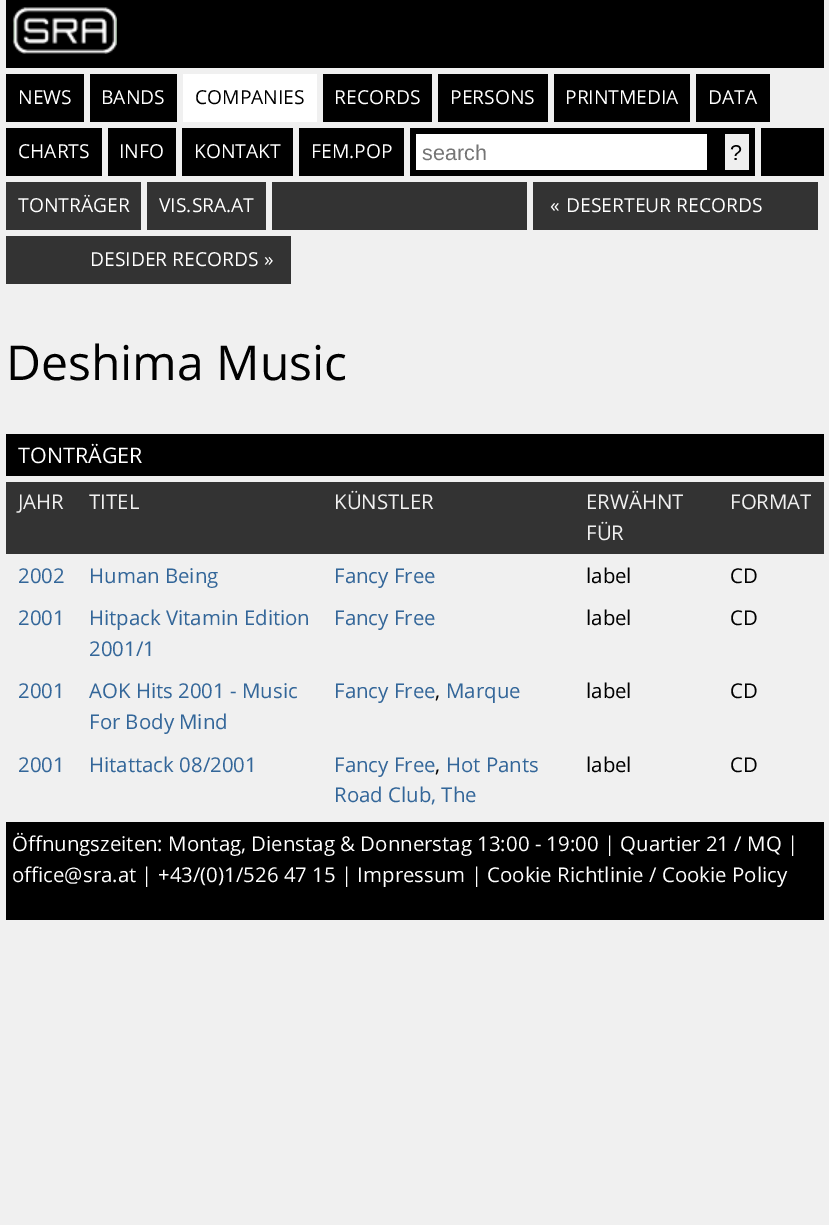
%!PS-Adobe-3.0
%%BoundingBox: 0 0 829 1225
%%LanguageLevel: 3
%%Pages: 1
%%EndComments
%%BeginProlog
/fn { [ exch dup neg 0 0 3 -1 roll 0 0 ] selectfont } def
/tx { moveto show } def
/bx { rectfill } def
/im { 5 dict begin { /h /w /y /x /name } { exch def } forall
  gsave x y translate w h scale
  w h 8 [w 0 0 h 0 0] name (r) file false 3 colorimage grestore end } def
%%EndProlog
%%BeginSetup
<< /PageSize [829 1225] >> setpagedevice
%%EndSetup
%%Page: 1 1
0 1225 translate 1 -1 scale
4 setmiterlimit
0.941 setgray
0 0 829 1225 bx
0 setgray
6 0 818 68 bx
(image0.raw) 12 7 105 47 im
6 74 78 48 bx
/OpenSans-Regular 19.25 fn
1 setgray
(NEWS) 18 104 tx
0 setgray
90 74 87 48 bx
1 setgray
(BANDS) 101 104 tx
183 74 134 48 bx
0 setgray
(COMPANIES) 195 104 tx
323 74 109 48 bx
1 setgray
(RECORDS) 334 104 tx
0 setgray
438 74 110 48 bx
1 setgray
(PERSONS) 450 104 tx
0 setgray
554 74 136 48 bx
1 setgray
(PRINTMEDIA) 565 104 tx
0 setgray
696 74 74 48 bx
1 setgray
(DATA) 708 104 tx
0 setgray
6 128 96 48 bx
1 setgray
(CHARTS) 18 158 tx
0 setgray
108 128 68 48 bx
1 setgray
(INFO) 119 158 tx
0 setgray
182 128 111 48 bx
1 setgray
(KONTAKT) 194 158 tx
0 setgray
299 128 105 48 bx
1 setgray
(FEM.POP) 311 158 tx
0 setgray
410 128 345 48 bx
1 setgray
416 134 291 36 bx
/LiberationSans-Regular 21.5 fn
0.459 setgray
(search) 422 160 tx
0.937 setgray
725 134 24 36 bx
0 setgray
(?) 730 160 tx
761 128 63 48 bx
0.2 setgray
6 182 135 48 bx
/OpenSans-Regular 19.25 fn
1 setgray
(TONTRÄGER) 18 212 tx
0.2 setgray
147 182 119 48 bx
1 setgray
(VIS.SRA.AT) 159 212 tx
0.2 setgray
272 182 255 48 bx
533 182 285 48 bx
1 setgray
(«) 550 212 tx
(DESERTEUR RECORDS) 566 212 tx
0.2 setgray
6 236 285 48 bx
1 setgray
(DESIDER RECORDS) 90 266 tx
(») 264 266 tx
/OpenSans-Regular 48 fn
0 setgray
(Deshima Music) 6 380 tx
6 434 818 42 bx
/OpenSans-Regular 21.5 fn
1 setgray
(TONTRÄGER) 18 463 tx
0.2 setgray
6 482 818 72 bx
/OpenSans-Regular 20.4 fn
0.941 setgray
(JAHR) 18 509 tx
(TITEL) 89 509 tx
(KÜNSTLER) 334 509 tx
(ERWÄHNT) 586 509 tx
(FÜR) 586 540 tx
(FORMAT) 730 509 tx
0.2 0.4 0.6 setrgbcolor
(2002) 18 583 tx
(Human Being) 89 583 tx
(Fancy Free) 334 583 tx
0 setgray
(label) 586 583 tx
(CD) 730 583 tx
0.2 0.4 0.6 setrgbcolor
(2001) 18 625 tx
(Hitpack Vitamin Edition) 89 625 tx
(2001/1) 89 656 tx
(Fancy Free) 334 625 tx
0 setgray
(label) 586 625 tx
(CD) 730 625 tx
0.2 0.4 0.6 setrgbcolor
(2001) 18 698 tx
(AOK Hits 2001 - Music) 89 698 tx
(For Body Mind) 89 729 tx
(Fancy Free) 334 698 tx
0 setgray
(,) 435 698 tx
0.2 0.4 0.6 setrgbcolor
(Marque) 446 698 tx
0 setgray
(label) 586 698 tx
(CD) 730 698 tx
0.2 0.4 0.6 setrgbcolor
(2001) 18 772 tx
(Hitattack 08/2001) 89 772 tx
(Fancy Free) 334 772 tx
0 setgray
(,) 435 772 tx
0.2 0.4 0.6 setrgbcolor
(Hot Pants) 446 772 tx
(Road Club, The) 334 802 tx
0 setgray
(label) 586 772 tx
(CD) 730 772 tx
6 822 818 98 bx
1 setgray
(Öffnungszeiten: Montag, Dienstag & Donnerstag 13:00 - 19:00 | Quartier 21 / MQ |) 12 851 tx
(office@sra.at | +43/\(0\)1/526 47 15 | Impressum | Cookie Richtlinie / Cookie Policy) 12 882 tx
showpage
%%EOF
